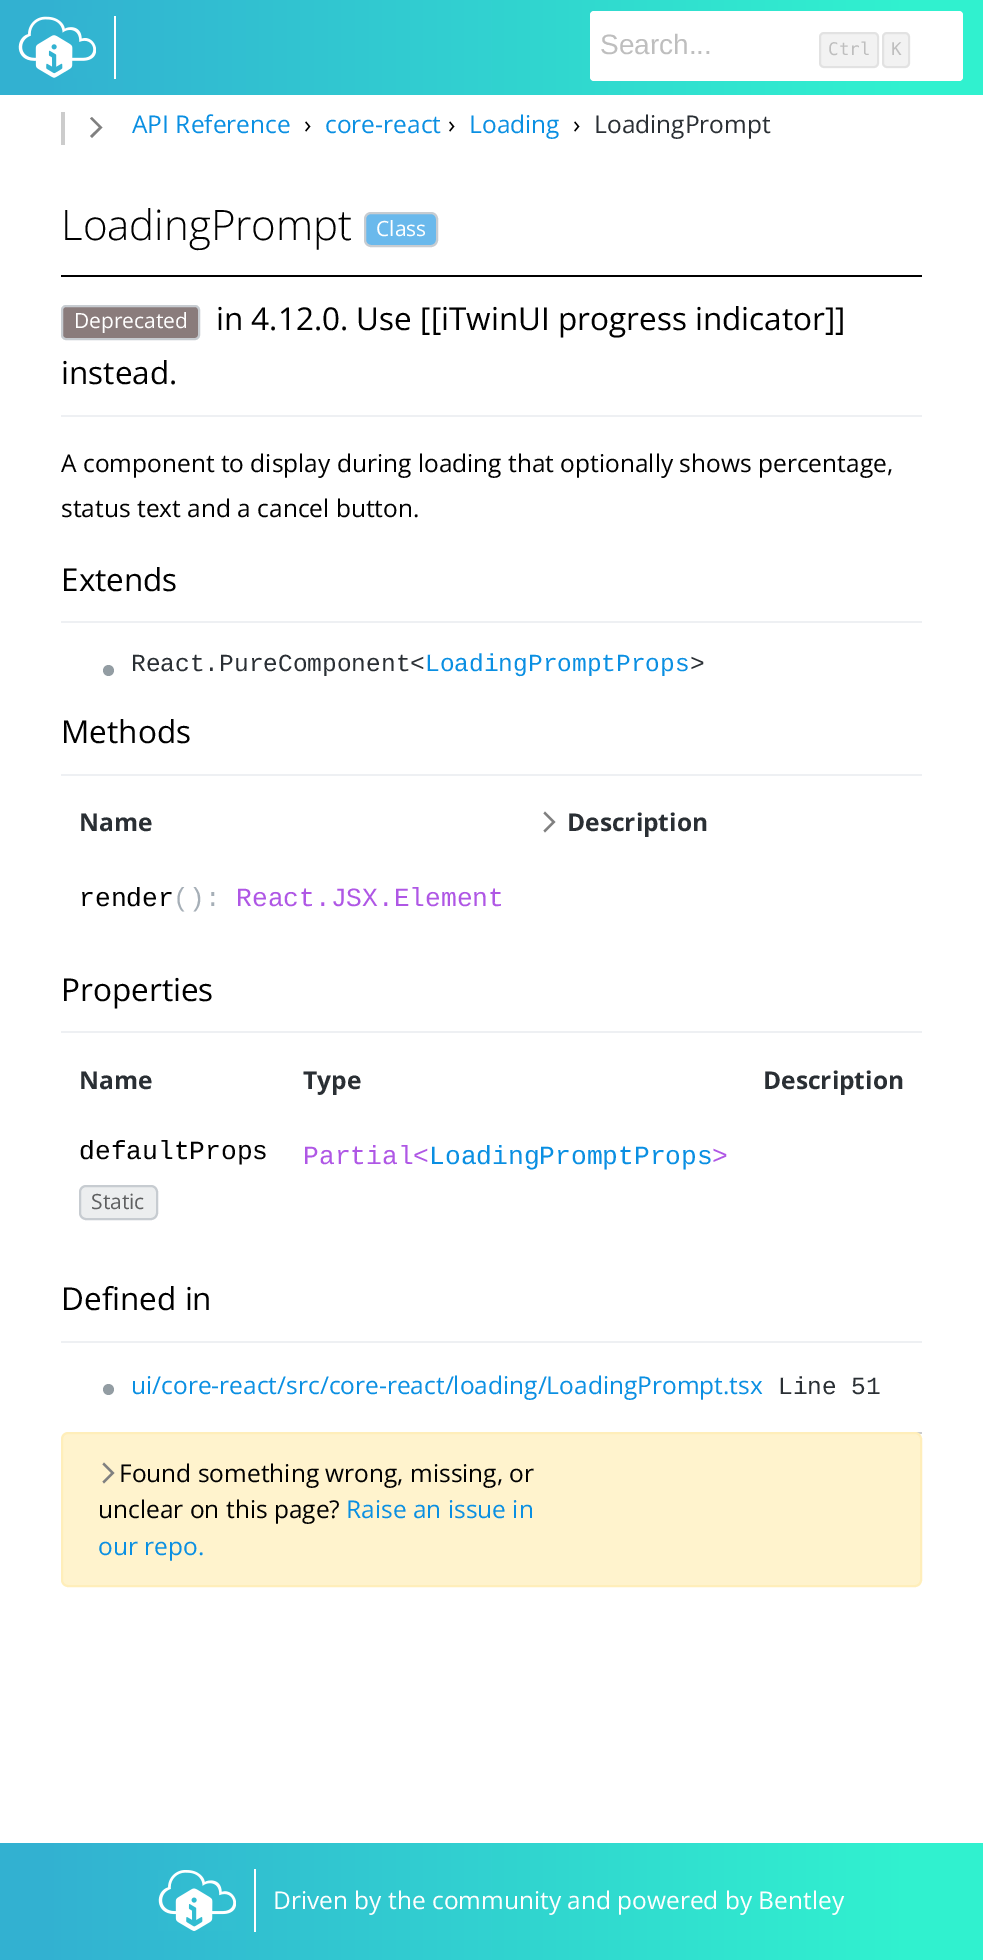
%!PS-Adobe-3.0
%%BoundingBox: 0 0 983 1960
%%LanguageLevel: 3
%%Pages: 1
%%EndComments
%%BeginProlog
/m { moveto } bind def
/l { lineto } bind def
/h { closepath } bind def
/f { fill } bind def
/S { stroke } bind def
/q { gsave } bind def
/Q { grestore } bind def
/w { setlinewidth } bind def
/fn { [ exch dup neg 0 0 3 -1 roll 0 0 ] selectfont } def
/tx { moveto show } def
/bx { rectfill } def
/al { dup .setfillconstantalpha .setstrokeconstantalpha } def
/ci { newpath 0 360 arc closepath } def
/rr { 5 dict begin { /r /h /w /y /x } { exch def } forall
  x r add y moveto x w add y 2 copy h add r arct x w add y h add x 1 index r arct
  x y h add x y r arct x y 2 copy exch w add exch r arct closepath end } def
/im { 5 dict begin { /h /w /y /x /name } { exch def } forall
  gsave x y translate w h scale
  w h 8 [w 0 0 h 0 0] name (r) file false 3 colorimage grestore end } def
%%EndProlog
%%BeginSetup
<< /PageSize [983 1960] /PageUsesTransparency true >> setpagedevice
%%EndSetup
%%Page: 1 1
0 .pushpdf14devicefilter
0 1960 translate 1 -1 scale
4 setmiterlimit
1 setgray
0 0 983 1960 bx
q 0 0 m 983 0 l 983 95 l 0 95 l h clip newpath
<< /ShadingType 2 /ColorSpace /DeviceRGB /Coords [0 47 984 47] /Extend [true true] /Function << /FunctionType 3 /Domain [0 1] /Functions [<< /FunctionType 2 /Domain [0 1] /C0 [0.196 0.694 0.82] /C1 [0.196 0.694 0.82] /N 1 >> << /FunctionType 2 /Domain [0 1] /C0 [0.196 0.694 0.82] /C1 [0.188 0.945 0.812] /N 1 >> << /FunctionType 2 /Domain [0 1] /C0 [0.188 0.945 0.812] /C1 [0.188 0.945 0.812] /N 1 >>] /Bounds [0.04 0.92] /Encode [0 1 0 1 0 1] >> >> shfill Q
(image0.raw) 18 16 78 62 im
114 16 2 63 bx
590 11 373 70 4 rr f
/LiberationSans-Regular 28 fn
0.745 setgray
(Search...) 600 54 tx
0.949 setgray
819 32 60 36 5 rr f
0.3 al
0.745 setgray
2 w
820 33 58 34 4 rr S
/DejaVuSansMono-Regular 17.5 fn
1 al
(Ctrl) 828 55 tx
0.949 setgray
882 32 28 36 5 rr f
0.3 al
0.745 setgray
883 33 26 34 4 rr S
1 al
(K) 891 55 tx
0.8 setgray
61 112 4 33 bx
0.502 setgray
92 117 m 90 118.5 l 99 127.5 l 90 136 l 92 138 l 102.5 127.5 l h f
/OpenSans-Regular 24.5 fn
0.039 0.561 0.886 setrgbcolor
(API Reference) 132 133 tx
0 setgray
(›) 304 133 tx
0.039 0.561 0.886 setrgbcolor
(core-react) 325 133 tx
0 setgray
(›) 448 133 tx
0.039 0.561 0.886 setrgbcolor
(Loading) 469 133 tx
0 setgray
(›) 573 133 tx
0.165 0.184 0.204 setrgbcolor
(LoadingPrompt) 594 133 tx
/OpenSans-Light 42 fn
0 setgray
(LoadingPrompt) 61 240 tx
0.416 0.725 0.925 setrgbcolor
365 213 72 33 6 rr q f Q
0.78 0.8 0.82 setrgbcolor
S
/OpenSans-Regular 21 fn
1 setgray
(Class) 376 236 tx
0 setgray
61 275 861 2 bx
0.541 0.486 0.486 setrgbcolor
62 306 137 33 4 rr q f Q
0.78 0.8 0.82 setrgbcolor
S
1 setgray
(Deprecated) 74 328 tx
/OpenSans-Regular 31.5 fn
0 setgray
(in 4.12.0. Use [[iTwinUI progress indicator]]) 216 330 tx
(instead.) 61 384 tx
0.933 0.941 0.953 setrgbcolor
61 415 861 2 bx
/OpenSans-Regular 24.5 fn
0 setgray
(A component to display during loading that optionally shows percentage,) 61 472 tx
(status text and a cancel button.) 61 517 tx
/OpenSans-Regular 31.5 fn
(Extends) 61 591 tx
0.933 0.941 0.953 setrgbcolor
61 621 861 2 bx
0.576 0.616 0.639 setrgbcolor
108.5 670.5 5.5 ci f
/LiberationMono-Regular 24.5 fn
0.165 0.184 0.204 setrgbcolor
(React.PureComponent<) 131 671 tx
0.039 0.561 0.886 setrgbcolor
(LoadingPromptProps) 425 671 tx
0.165 0.184 0.204 setrgbcolor
(>) 690 671 tx
/OpenSans-Regular 31.5 fn
0 setgray
(Methods) 61 743 tx
0.933 0.941 0.953 setrgbcolor
61 774 861 2 bx
/OpenSans-Bold 24.5 fn
0.165 0.184 0.204 setrgbcolor
(Name) 79 831 tx
0.502 setgray
545 811.5 m 543.5 813.5 l 552 822 l 543.5 830.5 l 545 832.5 l 555.5 822 l h f
0.165 0.184 0.204 setrgbcolor
(Description) 567 831 tx
/LiberationMono-Regular 26.25 fn
0 setgray
(render) 79 906 tx
0.651 0.686 0.718 setrgbcolor
(\(\):) 173 906 tx
0.686 0.341 0.898 setrgbcolor
(React.JSX.Element) 236 906 tx
/OpenSans-Regular 31.5 fn
0 setgray
(Properties) 61 1001 tx
0.933 0.941 0.953 setrgbcolor
61 1031 861 2 bx
/OpenSans-Bold 24.5 fn
0.165 0.184 0.204 setrgbcolor
(Name) 79 1089 tx
(Type) 303 1089 tx
(Description) 763 1089 tx
/LiberationMono-Regular 26.25 fn
0 setgray
(defaultProps) 79 1159 tx
0.925 0.933 0.937 setrgbcolor
80 1186 77 33 6 rr q f Q
0.78 0.8 0.82 setrgbcolor
S
/OpenSans-Regular 21 fn
0.369 0.373 0.376 setrgbcolor
(Static) 91 1209 tx
/LiberationMono-Regular 26.25 fn
0.686 0.341 0.898 setrgbcolor
(Partial<) 303 1164 tx
0.039 0.561 0.886 setrgbcolor
(LoadingPromptProps) 429 1164 tx
0.686 0.341 0.898 setrgbcolor
(>) 712 1164 tx
/OpenSans-Regular 31.5 fn
0 setgray
(Defined in) 61 1310 tx
0.933 0.941 0.953 setrgbcolor
61 1341 861 2 bx
0.576 0.616 0.639 setrgbcolor
108.5 1389.5 5.5 ci f
/OpenSans-Regular 24.5 fn
0.039 0.561 0.886 setrgbcolor
(ui/core-react/src/core-react/loading/LoadingPrompt.tsx) 131 1394 tx
/LiberationMono-Regular 24.5 fn
0.165 0.184 0.204 setrgbcolor
(Line 51) 778 1394 tx
0.8 setgray
915 1432 7 2 bx
1 0.953 0.804 setrgbcolor
62 1433 859 153 6 rr q f Q
1 0.933 0.729 setrgbcolor
S
0.502 setgray
104 1462.5 m 102.5 1464.5 l 111 1473 l 102.5 1481.5 l 104 1483.5 l 114.5 1473 l h f
/OpenSans-Regular 24.5 fn
0 setgray
(Found something wrong, missing, or) 119 1482 tx
(unclear on this page?) 98 1518 tx
0.039 0.561 0.886 setrgbcolor
(Raise an issue in) 346 1518 tx
(our repo.) 98 1555 tx
q 0 1843 m 983 1843 l 983 1960 l 0 1960 l h clip newpath
<< /ShadingType 2 /ColorSpace /DeviceRGB /Coords [0 1943 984 1943] /Extend [true true] /Function << /FunctionType 3 /Domain [0 1] /Functions [<< /FunctionType 2 /Domain [0 1] /C0 [0.196 0.694 0.82] /C1 [0.196 0.694 0.82] /N 1 >> << /FunctionType 2 /Domain [0 1] /C0 [0.196 0.694 0.82] /C1 [0.188 0.945 0.812] /N 1 >> << /FunctionType 2 /Domain [0 1] /C0 [0.188 0.945 0.812] /C1 [0.188 0.945 0.812] /N 1 >>] /Bounds [0.04 0.92] /Encode [0 1 0 1 0 1] >> >> shfill Q
(image1.raw) 158 1870 78 61 im
1 setgray
254 1869 2 63 bx
(Driven by the community and powered by Bentley) 273 1909 tx
.poppdf14devicefilter showpage
%%EOF
